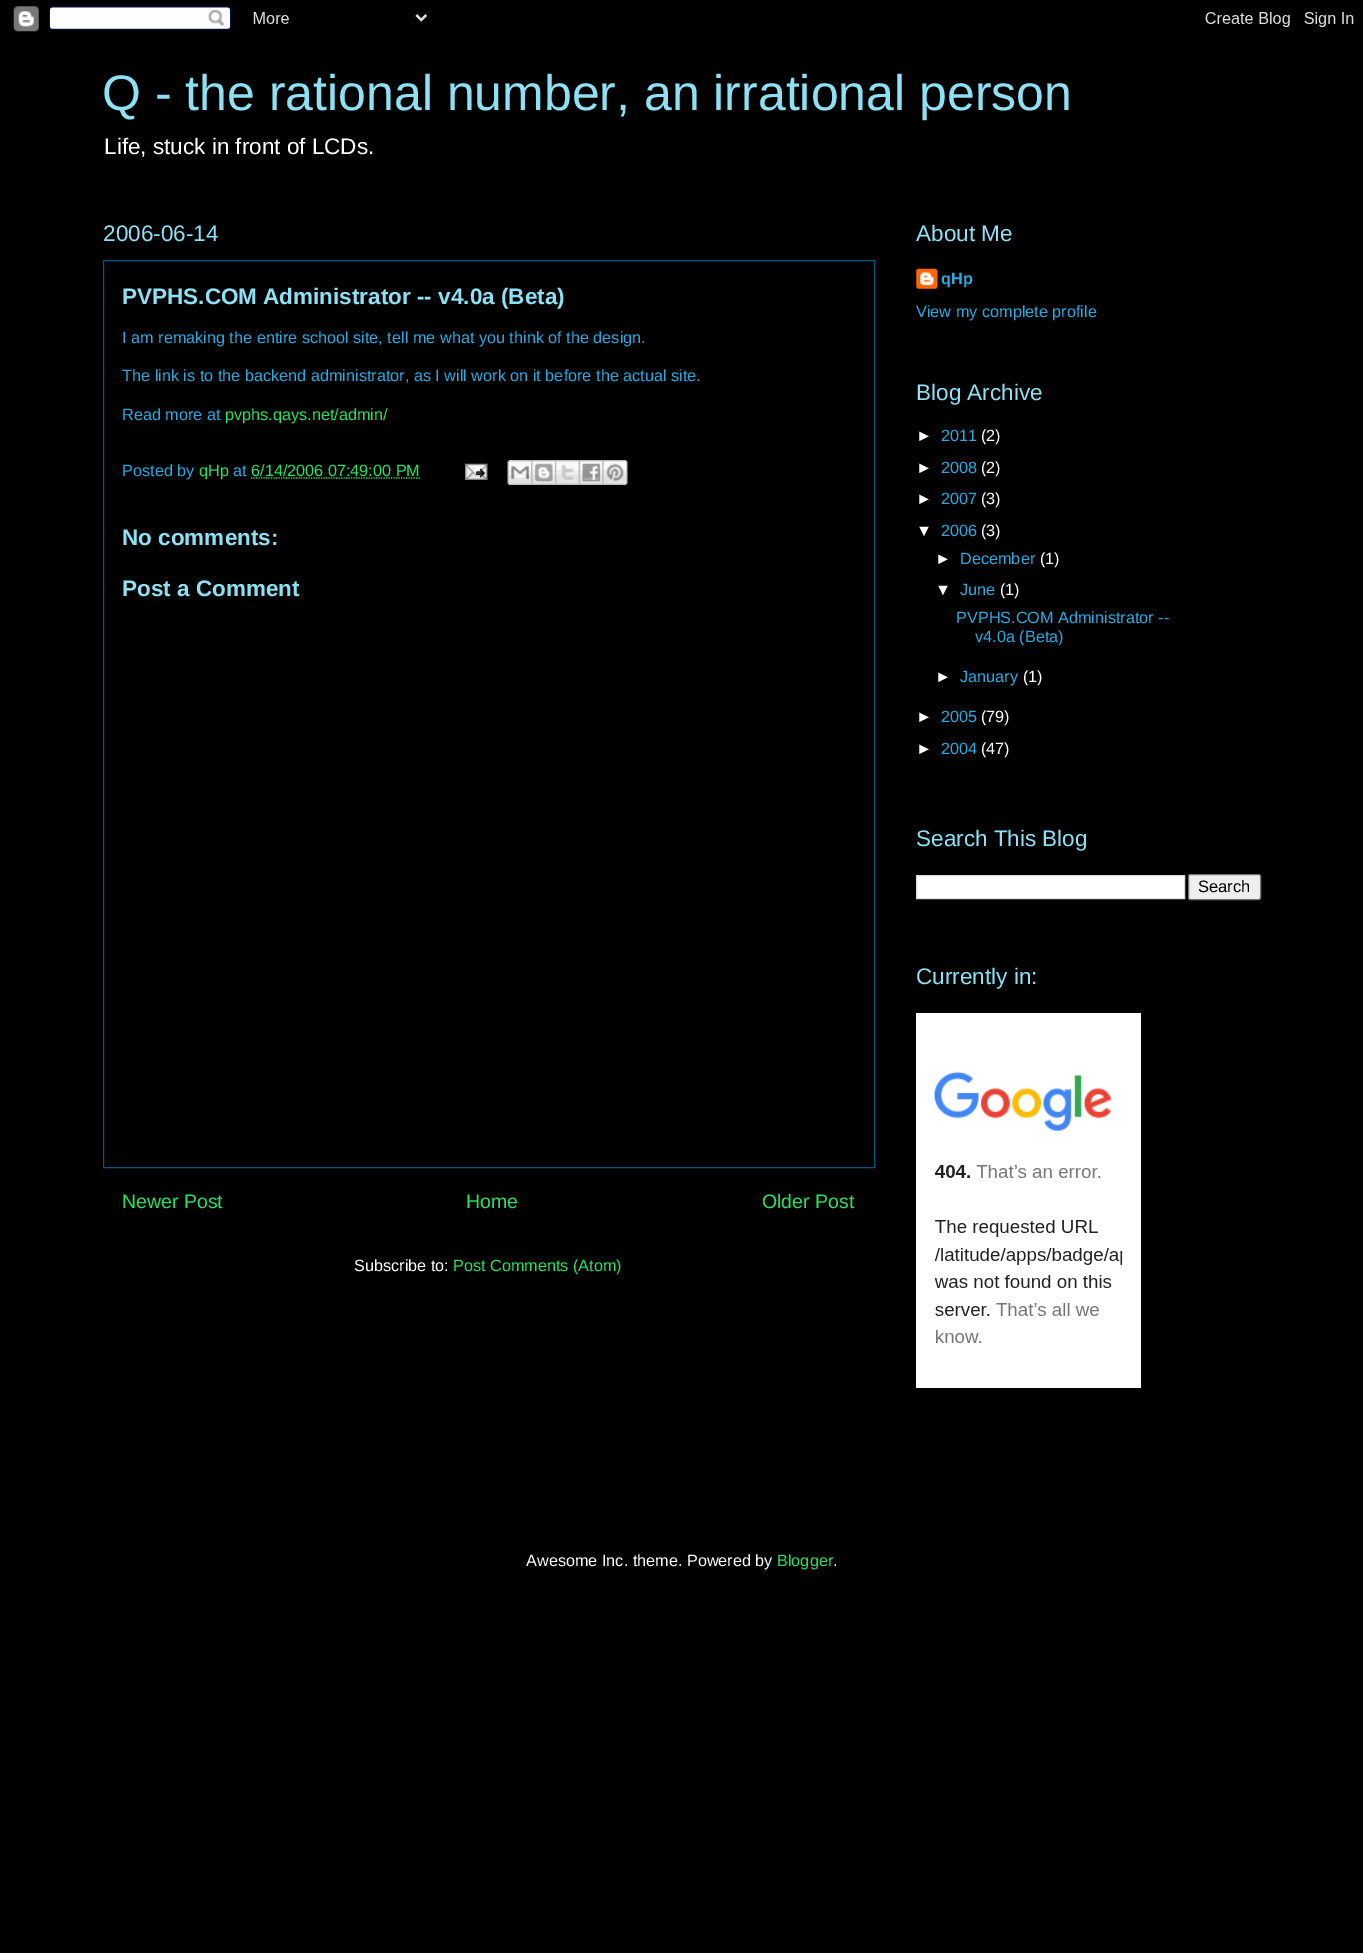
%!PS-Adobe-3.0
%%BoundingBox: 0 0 1363 1953
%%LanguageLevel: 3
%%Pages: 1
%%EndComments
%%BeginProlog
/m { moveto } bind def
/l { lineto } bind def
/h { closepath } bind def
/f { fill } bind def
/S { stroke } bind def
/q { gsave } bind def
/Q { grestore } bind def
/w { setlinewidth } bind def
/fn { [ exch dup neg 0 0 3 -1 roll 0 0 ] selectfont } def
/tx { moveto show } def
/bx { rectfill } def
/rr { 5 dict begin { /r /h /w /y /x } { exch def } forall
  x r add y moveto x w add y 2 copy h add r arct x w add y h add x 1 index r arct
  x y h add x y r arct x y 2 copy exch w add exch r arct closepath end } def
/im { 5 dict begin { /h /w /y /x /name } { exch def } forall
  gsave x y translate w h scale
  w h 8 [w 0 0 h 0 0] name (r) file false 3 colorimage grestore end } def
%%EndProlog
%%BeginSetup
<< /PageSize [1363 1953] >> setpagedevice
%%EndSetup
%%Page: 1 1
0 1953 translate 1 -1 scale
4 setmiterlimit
0 setgray
0 0 1363 1953 bx
(image0.raw) 13 6 1341 26 im
/LiberationSans-Regular 50 fn
0.549 0.882 0.961 setrgbcolor
(Q - the rational number, an irrational person) 102 110 tx
/LiberationSans-Regular 22.5 fn
1 setgray
(Life, stuck in front of LCDs.) 104 154 tx
0.004 0.341 0.51 setrgbcolor
103.5 260.5 771 907 rectstroke
0.549 0.882 0.961 setrgbcolor
(2006-06-14) 103 241 tx
/LiberationSans-Bold 22.5 fn
(PVPHS.COM Administrator -- v4.0a \(Beta\)) 122 304 tx
/LiberationSans-Regular 16.25 fn
0.161 0.667 0.882 setrgbcolor
(I am remaking the entire school site, tell me what you think of the design.) 122 343 tx
(The link is to the backend administrator, as I will work on it before the actual site.) 122 381 tx
(Read more at) 122 420 tx
0.157 0.882 0.373 setrgbcolor
(pvphs.qays.net/admin/) 225 420 tx
0.161 0.667 0.882 setrgbcolor
(Posted by) 122 476 tx
0.157 0.882 0.373 setrgbcolor
(qHp) 199 476 tx
0.161 0.667 0.882 setrgbcolor
(at) 233 476 tx
0.157 0.882 0.373 setrgbcolor
(6/14/2006 07:49:00 PM) 251 476 tx
1.2 w
[1.25 1.25] 0 setdash
251 478 m 420 478 l S
(image1.raw) 465 463 23 17 im
(image2.raw) 507 460 25 25 im
(image3.raw) 531 460 24 25 im
(image4.raw) 555 460 24 25 im
(image5.raw) 578 460 25 25 im
(image6.raw) 602 460 26 25 im
/LiberationSans-Bold 22.5 fn
0.549 0.882 0.961 setrgbcolor
(No comments:) 122 545 tx
(Post a Comment) 122 596 tx
/LiberationSans-Regular 19.5 fn
0.157 0.882 0.373 setrgbcolor
(Newer Post) 122 1208 tx
(Home) 466 1208 tx
(Older Post) 762 1208 tx
/LiberationSans-Regular 16.25 fn
1 setgray
(Subscribe to:) 354 1271 tx
0.157 0.882 0.373 setrgbcolor
(Post Comments \(Atom\)) 453 1271 tx
/LiberationSans-Regular 22.5 fn
0.549 0.882 0.961 setrgbcolor
(About Me) 916 241 tx
(image7.raw) 916 268 22 21 im
/LiberationSans-Bold 16.25 fn
0.161 0.667 0.882 setrgbcolor
(qHp) 941 284 tx
/LiberationSans-Regular 16.25 fn
(View my complete profile) 916 317 tx
/LiberationSans-Regular 22.5 fn
0.549 0.882 0.961 setrgbcolor
(Blog Archive) 916 400 tx
/LiberationSans-Regular 16.25 fn
1 setgray
(►) 916 441 tx
0.161 0.667 0.882 setrgbcolor
(2011) 941 441 tx
1 setgray
(\(2\)) 981 441 tx
(►) 916 473 tx
0.161 0.667 0.882 setrgbcolor
(2008) 941 473 tx
1 setgray
(\(2\)) 981 473 tx
(►) 916 504 tx
0.161 0.667 0.882 setrgbcolor
(2007) 941 504 tx
1 setgray
(\(3\)) 981 504 tx
(▼) 916 536 tx
0.161 0.667 0.882 setrgbcolor
(2006) 941 536 tx
1 setgray
(\(3\)) 981 536 tx
(►) 935 564 tx
0.161 0.667 0.882 setrgbcolor
(December) 960 564 tx
1 setgray
(\(1\)) 1040 564 tx
(▼) 935 595 tx
0.161 0.667 0.882 setrgbcolor
(June) 960 595 tx
1 setgray
(\(1\)) 1000 595 tx
0.161 0.667 0.882 setrgbcolor
(PVPHS.COM Administrator --) 956 623 tx
(v4.0a \(Beta\)) 975 642 tx
1 setgray
(►) 935 682 tx
0.161 0.667 0.882 setrgbcolor
(January) 960 682 tx
1 setgray
(\(1\)) 1023 682 tx
(►) 916 722 tx
0.161 0.667 0.882 setrgbcolor
(2005) 941 722 tx
1 setgray
(\(79\)) 981 722 tx
(►) 916 754 tx
0.161 0.667 0.882 setrgbcolor
(2004) 941 754 tx
1 setgray
(\(47\)) 981 754 tx
/LiberationSans-Regular 22.5 fn
0.549 0.882 0.961 setrgbcolor
(Search This Blog) 916 846 tx
1 setgray
916.5 875.5 m 1184.5 875.5 l 1184.5 898.5 l 916.5 898.5 l h q f Q
0.867 setgray
1 w
[] 0 setdash
S
0.937 setgray
1188.5 874.5 72 25 2 rr q f Q
0.463 setgray
S
/LiberationSans-Regular 16.5 fn
0 setgray
(Search) 1198 892 tx
/LiberationSans-Regular 22.5 fn
0.549 0.882 0.961 setrgbcolor
(Currently in:) 916 984 tx
(image8.raw) 916 1013 225 375 im
/LiberationSans-Regular 16.25 fn
1 setgray
(Awesome Inc. theme. Powered by) 526 1566 tx
0.157 0.882 0.373 setrgbcolor
(Blogger) 777 1566 tx
1 setgray
(.) 833 1566 tx
showpage
%%EOF
